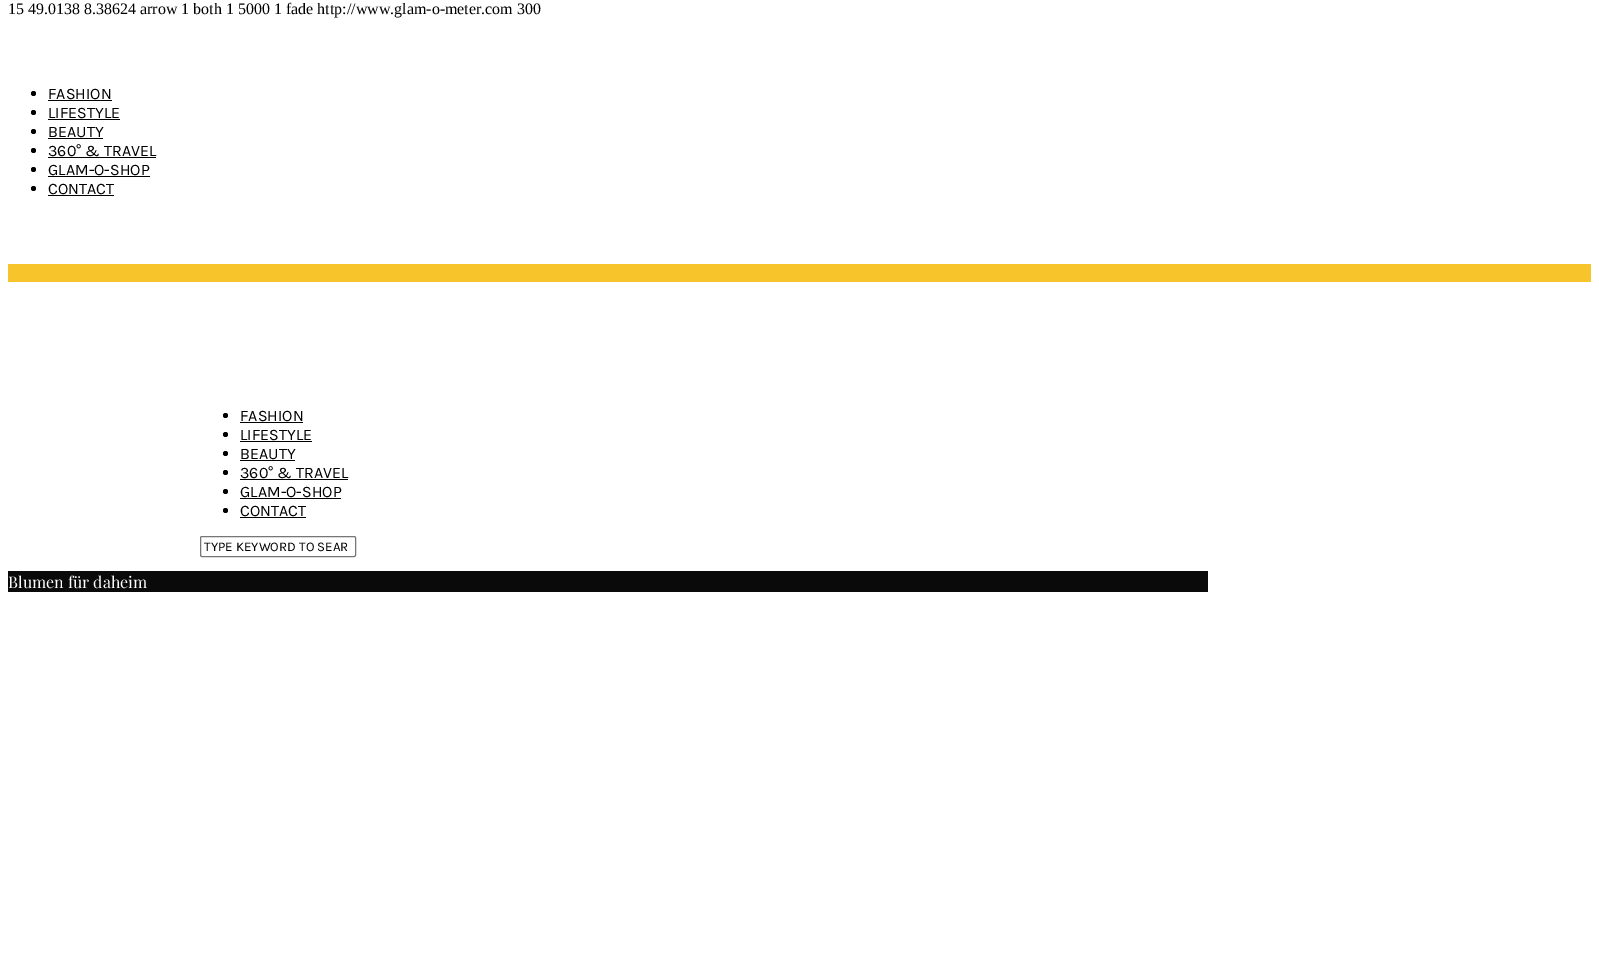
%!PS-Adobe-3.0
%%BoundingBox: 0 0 1599 970
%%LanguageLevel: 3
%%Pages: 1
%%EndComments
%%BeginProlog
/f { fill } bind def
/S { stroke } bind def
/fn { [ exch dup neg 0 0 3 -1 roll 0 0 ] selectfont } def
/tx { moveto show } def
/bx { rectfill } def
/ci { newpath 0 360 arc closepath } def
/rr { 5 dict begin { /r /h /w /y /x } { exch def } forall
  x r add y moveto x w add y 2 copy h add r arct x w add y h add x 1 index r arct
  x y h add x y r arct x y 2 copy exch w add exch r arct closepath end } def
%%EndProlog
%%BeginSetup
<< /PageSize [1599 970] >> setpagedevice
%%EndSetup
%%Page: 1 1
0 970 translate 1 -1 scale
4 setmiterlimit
1 setgray
0 0 1599 970 bx
/LiberationSerif-Regular 16 fn
0 setgray
(15 49.0138 8.38624 arrow 1 both 1 5000 1 fade http://www.glam-o-meter.com 300) 8 14 tx
33.5 93.5 2.5 ci f
/Karla-Regular 16 fn
(FASHION) 48 99 tx
48 100 64 1 bx
33.5 112.5 2.5 ci f
(LIFESTYLE) 48 118 tx
48 119 72 1 bx
33.5 131.5 2.5 ci f
(BEAUTY) 48 137 tx
48 138 55 1 bx
33.5 150.5 2.5 ci f
(360° & TRAVEL) 48 156 tx
48 157 108 1 bx
33.5 169.5 2.5 ci f
(GLAM-O-SHOP) 48 175 tx
48 176 102 1 bx
33.5 188.5 2.5 ci f
(CONTACT) 48 194 tx
48 195 66 1 bx
0.969 0.769 0.173 setrgbcolor
8 264 1583 18 bx
0 setgray
225.5 415.5 2.5 ci f
(FASHION) 240 421 tx
240 422 63 1 bx
225.5 434.5 2.5 ci f
(LIFESTYLE) 240 440 tx
240 441 72 1 bx
225.5 453.5 2.5 ci f
(BEAUTY) 240 459 tx
240 460 55 1 bx
225.5 472.5 2.5 ci f
(360° & TRAVEL) 240 478 tx
240 479 108 1 bx
225.5 491.5 2.5 ci f
(GLAM-O-SHOP) 240 497 tx
240 498 101 1 bx
225.5 510.5 2.5 ci f
(CONTACT) 240 516 tx
240 517 66 1 bx
0.463 setgray
200.5 536.5 155 20 1.5 rr S
/Karla-Regular 13.25 fn
0 setgray
(TYPE KEYWORD TO SEAR) 204 551 tx
0.039 setgray
8 571 1200 21 bx
/PlayfairDisplay-Regular 16 fn
1 setgray
(Blumen für daheim) 8 588 tx
showpage
%%EOF
